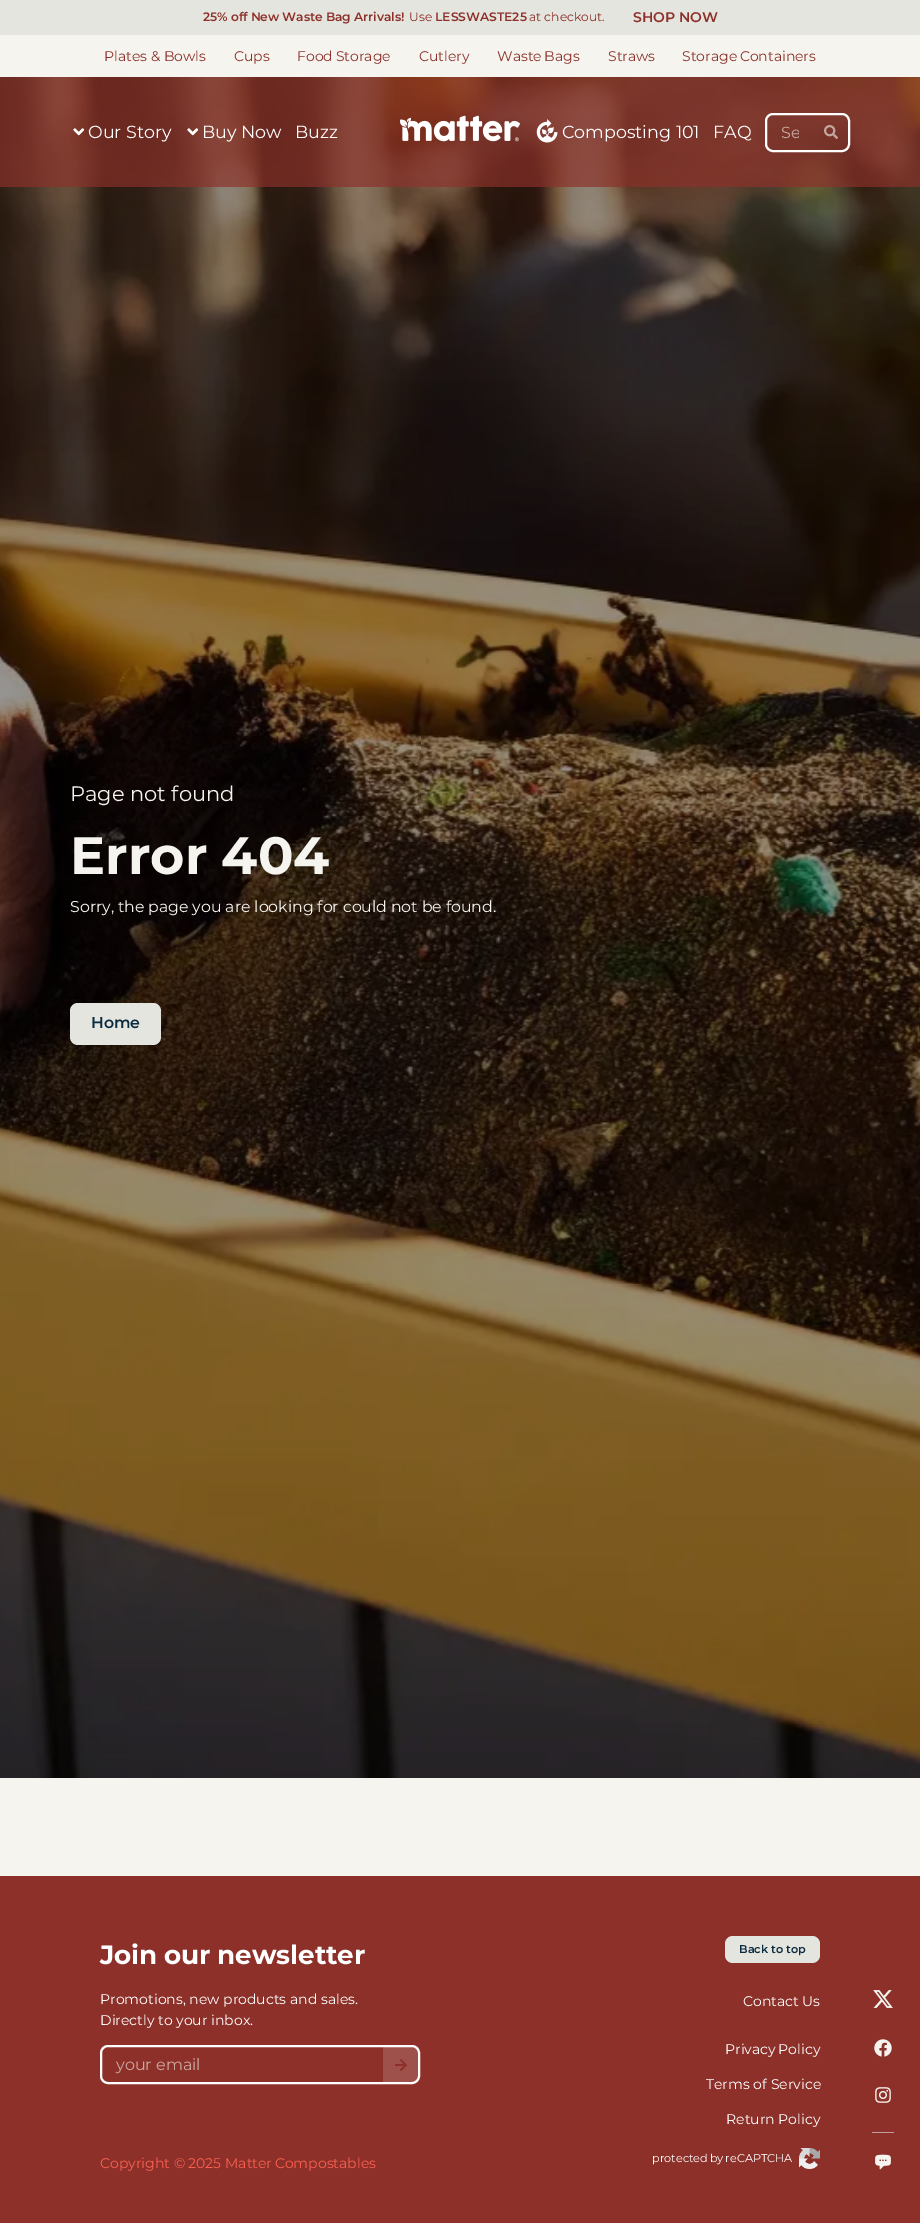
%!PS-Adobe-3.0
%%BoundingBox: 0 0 920 2223
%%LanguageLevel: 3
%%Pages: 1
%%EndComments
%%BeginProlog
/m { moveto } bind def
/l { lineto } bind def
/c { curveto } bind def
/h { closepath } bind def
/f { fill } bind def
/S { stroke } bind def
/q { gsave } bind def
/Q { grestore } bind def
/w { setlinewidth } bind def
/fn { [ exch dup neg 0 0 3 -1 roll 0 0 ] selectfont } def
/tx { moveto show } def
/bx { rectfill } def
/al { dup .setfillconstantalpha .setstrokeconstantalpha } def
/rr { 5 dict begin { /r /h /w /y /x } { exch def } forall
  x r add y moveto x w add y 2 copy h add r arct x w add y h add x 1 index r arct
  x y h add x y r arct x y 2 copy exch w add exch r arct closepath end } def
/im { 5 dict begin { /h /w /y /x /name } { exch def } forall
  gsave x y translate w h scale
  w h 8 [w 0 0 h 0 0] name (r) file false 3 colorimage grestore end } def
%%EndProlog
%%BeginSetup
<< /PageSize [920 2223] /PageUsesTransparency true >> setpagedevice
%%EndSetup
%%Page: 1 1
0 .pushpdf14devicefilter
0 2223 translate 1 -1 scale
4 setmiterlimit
0.961 0.957 0.933 setrgbcolor
0 0 920 2223 bx
0.898 0.898 0.875 setrgbcolor
0 0 920 35 bx
/Montserrat-SemiBold 12.25 fn
0.549 0.188 0.161 setrgbcolor
203 21 m -0.5 0 32 (25% off New Waste Bag Arrivals!) widthshow
/Montserrat-Regular 12.25 fn
(Use) 409 21 tx
/Montserrat-SemiBold 12.25 fn
(LESSWASTE25) 435 21 tx
/Montserrat-Regular 12.25 fn
(at checkout.) 529 21 tx
/Montserrat-SemiBold 14 fn
(SHOP NOW) 633 22 tx
/Montserrat-Regular 14 fn
(Plates & Bowls) 104 61 tx
(Cups) 234 61 tx
297 61 m -1 0 32 (Food Storage) widthshow
(Cutlery) 419 61 tx
497 61 m -1 0 32 (Waste Bags) widthshow
(Straws) 608 61 tx
682 61 m -1 0 32 (Storage Containers) widthshow
(image5.raw) 0 77 920 1701 im
0.67 al
0 77 920 110 bx
1 al
(image0.raw) 73 128 12 8 im
/Montserrat-Regular 17.5 fn
1 setgray
(Our Story) 88 138 tx
(image1.raw) 187 128 12 8 im
(Buy Now) 202 138 tx
(Buzz) 295 138 tx
(image2.raw) 400 115 120 27 im
(image3.raw) 536 119 22 24 im
(Composting 101) 562 138 tx
(FAQ) 713 138 tx
2 w
766 114 83 37 7 rr S
q
781 123 18 19 rectclip
/Montserrat-Regular 16 fn
0.769 0.659 0.627 setrgbcolor
(Se) 781 138 tx
Q
(image4.raw) 824 125 14 14 im
/Montserrat-Regular 21 fn
0.961 0.957 0.933 setrgbcolor
(Page not found) 70 801 tx
/Montserrat-Bold 52.5 fn
70 874 m -1 0 32 (Error 404) widthshow
/Montserrat-Regular 15.75 fn
70 912 m -0.25 0 32 (Sorry, the page you are looking for could not be found.) widthshow
0.898 0.898 0.875 setrgbcolor
70 1003 91 42 8 rr f
/Montserrat-SemiBold 15.75 fn
0.043 0.169 0.255 setrgbcolor
(Home) 91 1028 tx
0.549 0.188 0.161 setrgbcolor
0 1876 920 347 bx
/Montserrat-Bold 26.25 fn
1 setgray
100 1964 m -1 0 32 (Join our newsletter) widthshow
/Montserrat-Regular 14 fn
(Promotions, new products and sales.) 100 2004 tx
(Directly to your inbox.) 100 2025 tx
101 2046 318 37 7 rr S
/Montserrat-Regular 16 fn
0.796 0.651 0.624 setrgbcolor
(your email) 116 2070 tx
0.16 al
1 setgray
383 2047 m 412 2047 l 415.5 2047 418 2049.5 418 2053 c 418 2076 l 418 2079.5 415.5 2082 412 2082 c 383 2082 l h f
1 al
(image6.raw) 395 2059 12 12 im
/Montserrat-Regular 14 fn
0.984 0.376 0.318 setrgbcolor
(Copyright ©) 100 2168 tx
(2025) 188 2168 tx
225 2168 m -1 0 32 (Matter Compostables) widthshow
0.898 0.898 0.875 setrgbcolor
725 1936 95 27 8 rr f
/Montserrat-SemiBold 11.25 fn
0.043 0.169 0.255 setrgbcolor
(Back to top) 739 1953 tx
/Montserrat-Regular 14 fn
1 setgray
(Contact Us) 743 2006 tx
725 2054 m -1 0 32 (Privacy Policy) widthshow
(Terms of Service) 706 2089 tx
(Return Policy) 726 2124 tx
/Montserrat-Regular 11.25 fn
652 2162 m -1 0 32 (protected by reCAPTCHA) widthshow
(image7.raw) 799 2148 21 21 im
(image8.raw) 873 1990 20 18 im
(image9.raw) 874 2039 18 18 im
(image10.raw) 875 2087 16 16 im
0.753 0.62 0.627 setrgbcolor
872 2132 22 1 bx
(image11.raw) 875 2154 16 16 im
.poppdf14devicefilter showpage
%%EOF
